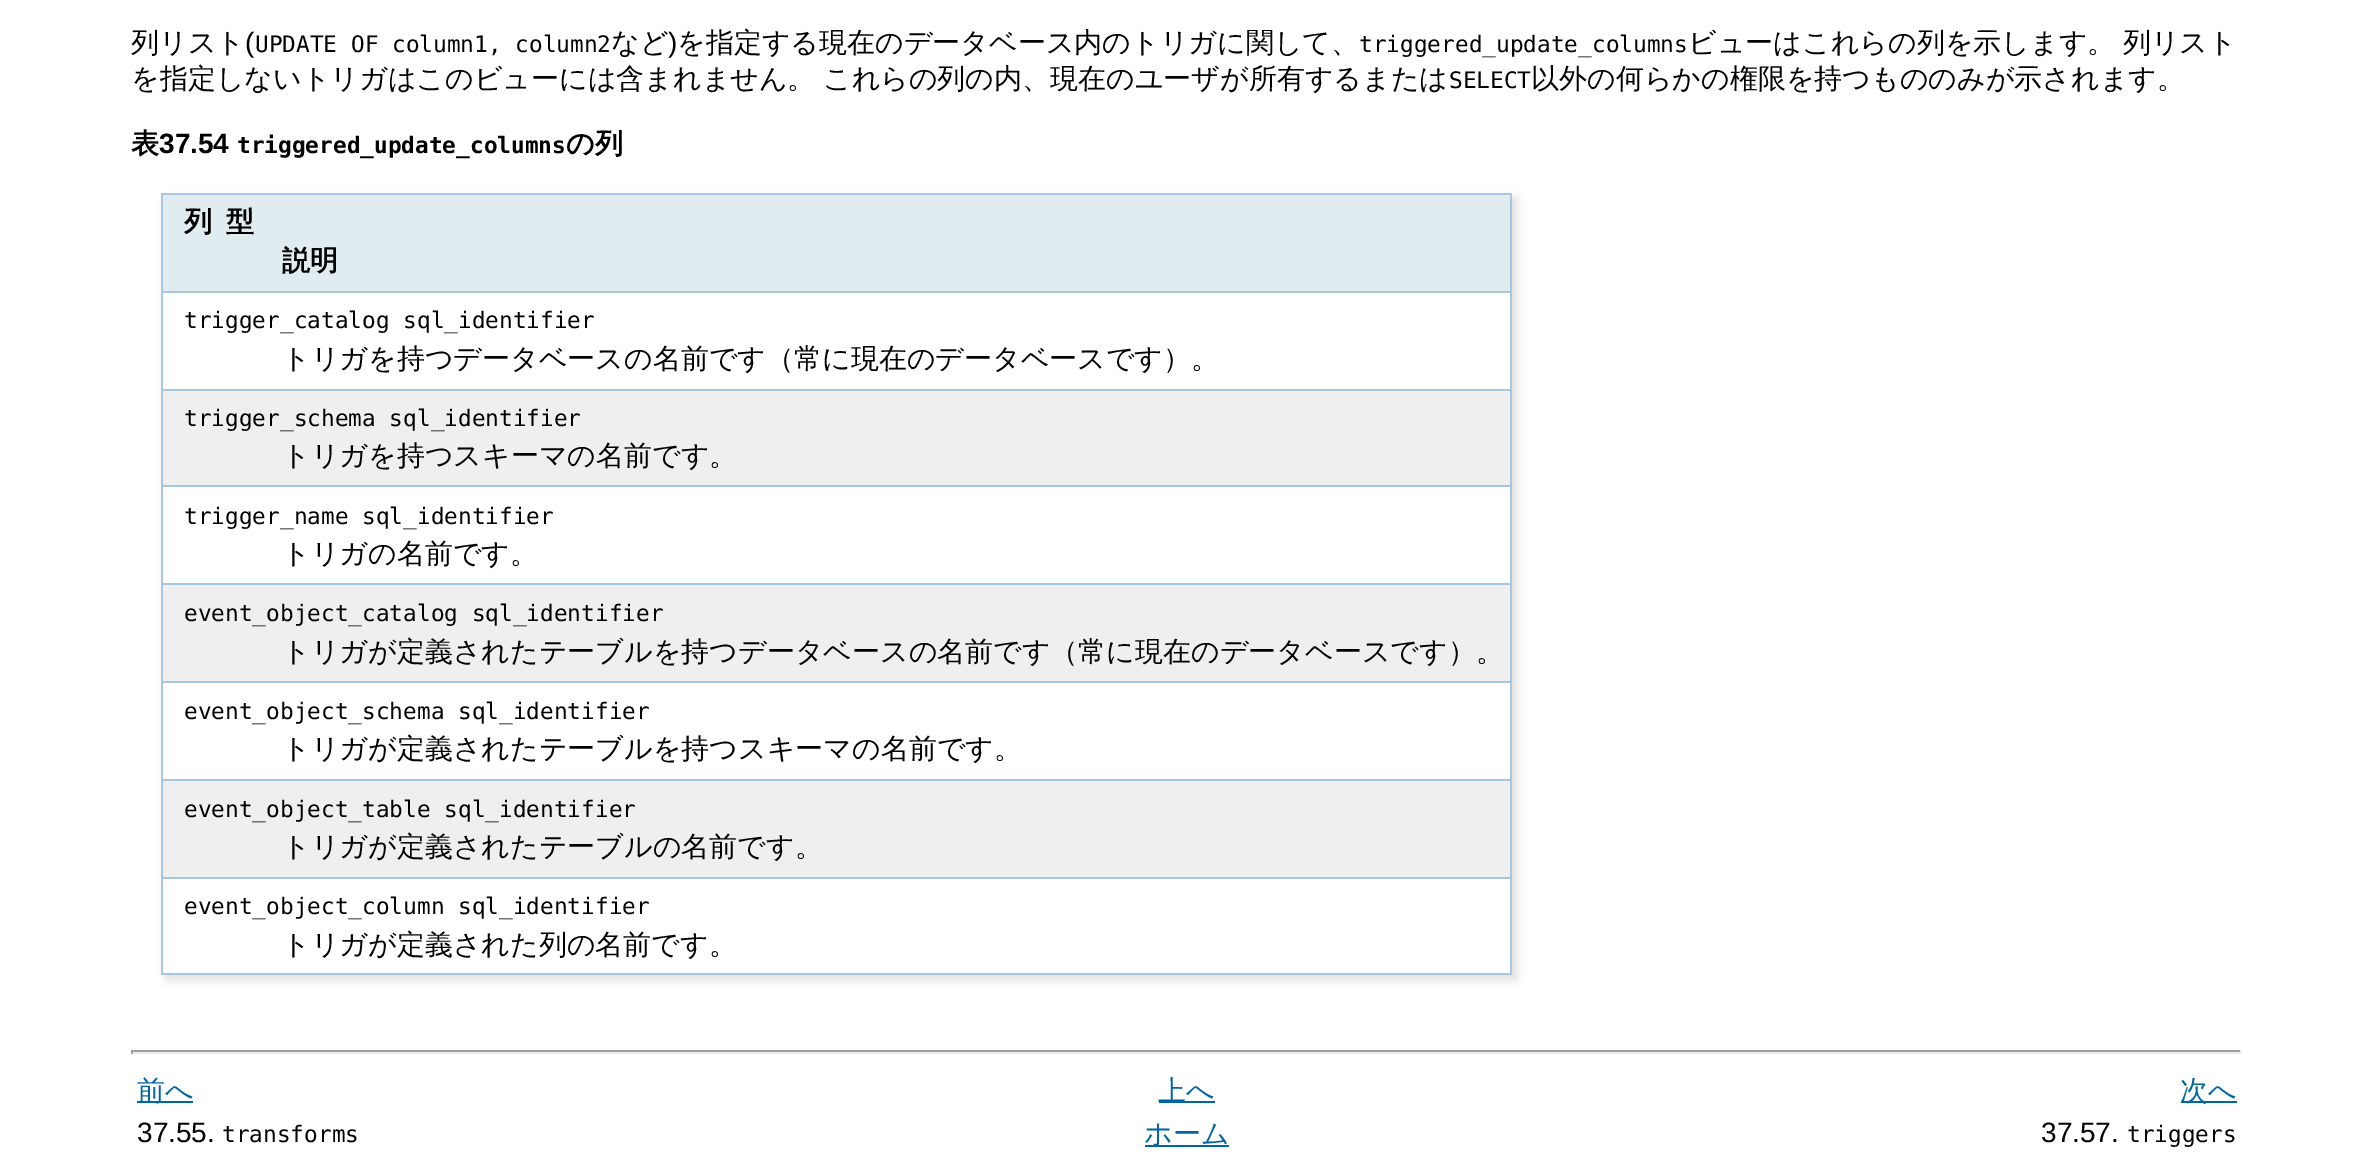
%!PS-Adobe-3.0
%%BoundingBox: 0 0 2373 1172
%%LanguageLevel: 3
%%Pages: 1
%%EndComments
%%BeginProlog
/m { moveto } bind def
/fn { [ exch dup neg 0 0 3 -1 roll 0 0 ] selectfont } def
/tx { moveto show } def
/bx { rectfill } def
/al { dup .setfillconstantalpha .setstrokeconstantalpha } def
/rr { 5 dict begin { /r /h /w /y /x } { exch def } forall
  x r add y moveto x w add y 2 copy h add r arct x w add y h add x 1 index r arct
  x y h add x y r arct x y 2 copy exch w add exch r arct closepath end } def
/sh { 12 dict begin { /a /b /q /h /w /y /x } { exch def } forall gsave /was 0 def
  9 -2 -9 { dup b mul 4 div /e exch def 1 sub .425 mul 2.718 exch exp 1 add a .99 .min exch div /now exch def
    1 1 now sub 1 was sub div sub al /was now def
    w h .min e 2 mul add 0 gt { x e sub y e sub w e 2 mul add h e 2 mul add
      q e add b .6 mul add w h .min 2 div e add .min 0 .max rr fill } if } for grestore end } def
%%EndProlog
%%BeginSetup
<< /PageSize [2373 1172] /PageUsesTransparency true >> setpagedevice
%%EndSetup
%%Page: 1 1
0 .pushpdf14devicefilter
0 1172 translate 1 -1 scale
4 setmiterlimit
1 setgray
0 0 2373 1172 bx
/WenQuanYiZenHei-Medium 28 fn
0 setgray
(列リスト) 131 52 tx
/LiberationSans-Regular 28 fn
(\() 245 52 tx
/DejaVuSansMono-Regular 22.75 fn
(UPDATE OF column1, column2) 255 52 tx
/WenQuanYiZenHei-Medium 28 fn
(など) 611 52 tx
/LiberationSans-Regular 28 fn
(\)) 668 52 tx
/WenQuanYiZenHei-Medium 28 fn
(を指定する現在のデータベース内のトリガに関して、) 677 52 tx
/DejaVuSansMono-Regular 22.75 fn
(triggered_update_columns) 1359 52 tx
/WenQuanYiZenHei-Medium 28 fn
1688 52 m -1 0 32 (ビューはこれらの列を示します。 列リスト) widthshow
131 88 m -1 0 32 (を指定しないトリガはこのビューには含まれません。 これらの列の内、現在のユーザが所有するまたは) widthshow
/DejaVuSansMono-Regular 22.75 fn
(SELECT) 1449 88 tx
/WenQuanYiZenHei-Medium 28 fn
(以外の何らかの権限を持つもののみが示されます。) 1531 88 tx
/WenQuanYiZenHei-Bold 28 fn
(表) 131 153 tx
/LiberationSans-Bold 28 fn
(37.54) 159 153 tx
/DejaVuSansMono-Bold 22.75 fn
(triggered_update_columns) 237 153 tx
/WenQuanYiZenHei-Bold 28 fn
(の列) 566 153 tx
0.875 setgray
166 198 1351 782 0 4.5 1 sh
0.878 0.925 0.937 setrgbcolor
163 195 1347 96 bx
0.655 0.776 0.875 setrgbcolor
161 193 1351 2 bx
1510 193 2 782 bx
161 973 1351 2 bx
161 193 2 782 bx
0 setgray
184 231 m 6 0 32 (列 型) widthshow
(説明) 282 270 tx
1 setgray
163 293 1347 96 bx
0.655 0.776 0.875 setrgbcolor
161 291 1351 2 bx
/DejaVuSansMono-Regular 22.75 fn
0 setgray
(trigger_catalog sql_identifier) 184 328 tx
/WenQuanYiZenHei-Medium 28 fn
(トリガを持つデータベースの名前です（常に現在のデータベースです）。) 282 368 tx
0.937 setgray
163 391 1347 94 bx
0.655 0.776 0.875 setrgbcolor
161 389 1351 2 bx
/DejaVuSansMono-Regular 22.75 fn
0 setgray
(trigger_schema sql_identifier) 184 426 tx
/WenQuanYiZenHei-Medium 28 fn
(トリガを持つスキーマの名前です。) 282 465 tx
1 setgray
163 487 1347 96 bx
0.655 0.776 0.875 setrgbcolor
161 485 1351 2 bx
/DejaVuSansMono-Regular 22.75 fn
0 setgray
(trigger_name sql_identifier) 184 524 tx
/WenQuanYiZenHei-Medium 28 fn
(トリガの名前です。) 282 563 tx
0.937 setgray
163 585 1347 96 bx
0.655 0.776 0.875 setrgbcolor
161 583 1351 2 bx
/DejaVuSansMono-Regular 22.75 fn
0 setgray
(event_object_catalog sql_identifier) 184 621 tx
/WenQuanYiZenHei-Medium 28 fn
(トリガが定義されたテーブルを持つデータベースの名前です（常に現在のデータベースです）。) 282 661 tx
1 setgray
163 683 1347 96 bx
0.655 0.776 0.875 setrgbcolor
161 681 1351 2 bx
/DejaVuSansMono-Regular 22.75 fn
0 setgray
(event_object_schema sql_identifier) 184 719 tx
/WenQuanYiZenHei-Medium 28 fn
(トリガが定義されたテーブルを持つスキーマの名前です。) 282 758 tx
0.937 setgray
163 781 1347 96 bx
0.655 0.776 0.875 setrgbcolor
161 779 1351 2 bx
/DejaVuSansMono-Regular 22.75 fn
0 setgray
(event_object_table sql_identifier) 184 817 tx
/WenQuanYiZenHei-Medium 28 fn
(トリガが定義されたテーブルの名前です。) 282 856 tx
1 setgray
163 879 1347 94 bx
0.655 0.776 0.875 setrgbcolor
161 877 1351 2 bx
/DejaVuSansMono-Regular 22.75 fn
0 setgray
(event_object_column sql_identifier) 184 914 tx
/WenQuanYiZenHei-Medium 28 fn
(トリガが定義された列の名前です。) 282 954 tx
0.624 setgray
131 1050 2111 2 bx
0.933 setgray
2240 1050 2 4 bx
131 1052 2111 2 bx
0.624 setgray
131 1050 2 4 bx
0 0.4 0.635 setrgbcolor
137 1101 56 2 bx
(前へ) 137 1100 tx
1159 1101 56 2 bx
(上へ) 1158 1100 tx
2181 1101 56 2 bx
(次へ) 2180 1100 tx
/LiberationSans-Regular 28 fn
0 setgray
(37.55.) 137 1142 tx
/DejaVuSansMono-Regular 22.75 fn
(transforms) 222 1142 tx
0 0.4 0.635 setrgbcolor
1145 1145 84 2 bx
/WenQuanYiZenHei-Medium 28 fn
(ホーム) 1144 1143 tx
/LiberationSans-Regular 28 fn
0 setgray
(37.57.) 2041 1142 tx
/DejaVuSansMono-Regular 22.75 fn
(triggers) 2127 1142 tx
.poppdf14devicefilter showpage
%%EOF
